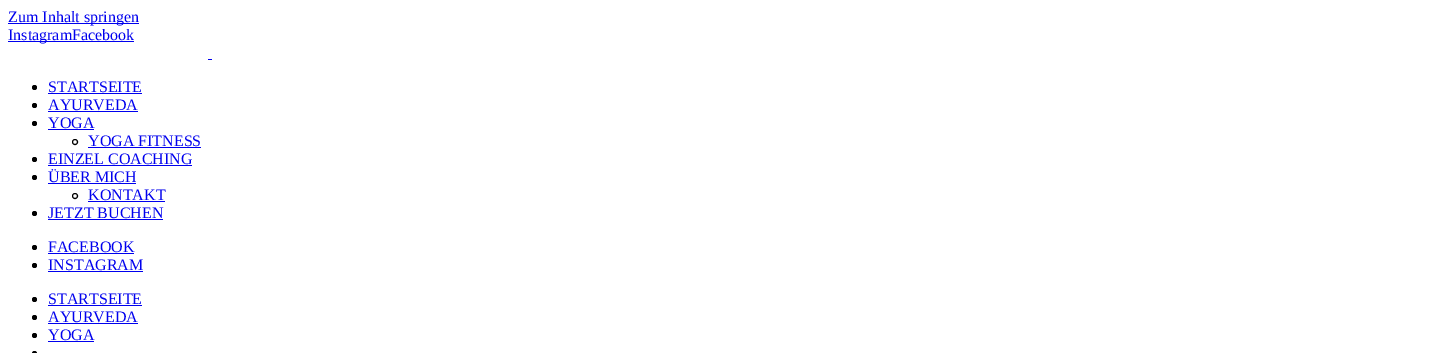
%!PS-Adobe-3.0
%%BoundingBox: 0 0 1447 353
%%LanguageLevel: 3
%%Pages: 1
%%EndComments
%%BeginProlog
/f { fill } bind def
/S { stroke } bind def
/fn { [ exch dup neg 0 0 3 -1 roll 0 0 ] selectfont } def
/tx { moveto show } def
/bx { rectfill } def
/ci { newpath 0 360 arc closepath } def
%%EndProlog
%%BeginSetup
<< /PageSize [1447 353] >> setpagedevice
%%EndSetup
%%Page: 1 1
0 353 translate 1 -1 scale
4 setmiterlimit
1 setgray
0 0 1447 353 bx
0 0 0.933 setrgbcolor
8 23 131 1 bx
/LiberationSerif-Regular 16 fn
(Zum Inhalt springen) 8 22 tx
8 41 126 1 bx
(InstagramFacebook) 8 40 tx
208 59 4 1 bx
0 setgray
34.5 87.5 2.5 ci f
0 0 0.933 setrgbcolor
(STARTSEITE) 48 92 tx
48 93 94 1 bx
0 setgray
34.5 105.5 2.5 ci f
0 0 0.933 setrgbcolor
(AYURVEDA) 48 110 tx
48 111 90 1 bx
0 setgray
34.5 123.5 2.5 ci f
0 0 0.933 setrgbcolor
(YOGA) 48 128 tx
48 129 46 1 bx
0 setgray
75 142 2.5 ci S
0 0 0.933 setrgbcolor
(YOGA FITNESS) 88 146 tx
88 147 113 1 bx
0 setgray
34.5 159.5 2.5 ci f
0 0 0.933 setrgbcolor
(EINZEL COACHING) 48 164 tx
48 165 144 1 bx
0 setgray
34.5 177.5 2.5 ci f
0 0 0.933 setrgbcolor
(ÜBER MICH) 48 182 tx
48 183 88 1 bx
0 setgray
75 196 2.5 ci S
0 0 0.933 setrgbcolor
(KONTAKT) 88 200 tx
88 201 77 1 bx
0 setgray
34.5 213.5 2.5 ci f
0 0 0.933 setrgbcolor
(JETZT BUCHEN) 48 218 tx
48 219 115 1 bx
0 setgray
34.5 247.5 2.5 ci f
0 0 0.933 setrgbcolor
(FACEBOOK) 48 252 tx
48 253 86 1 bx
0 setgray
34.5 265.5 2.5 ci f
0 0 0.933 setrgbcolor
(INSTAGRAM) 48 270 tx
48 271 95 1 bx
0 setgray
34.5 299.5 2.5 ci f
0 0 0.933 setrgbcolor
(STARTSEITE) 48 304 tx
48 305 94 1 bx
0 setgray
34.5 317.5 2.5 ci f
0 0 0.933 setrgbcolor
(AYURVEDA) 48 322 tx
48 323 90 1 bx
0 setgray
34.5 335.5 2.5 ci f
0 0 0.933 setrgbcolor
(YOGA) 48 340 tx
48 341 46 1 bx
0 setgray
34.5 353.5 2.5 ci f
showpage
%%EOF
